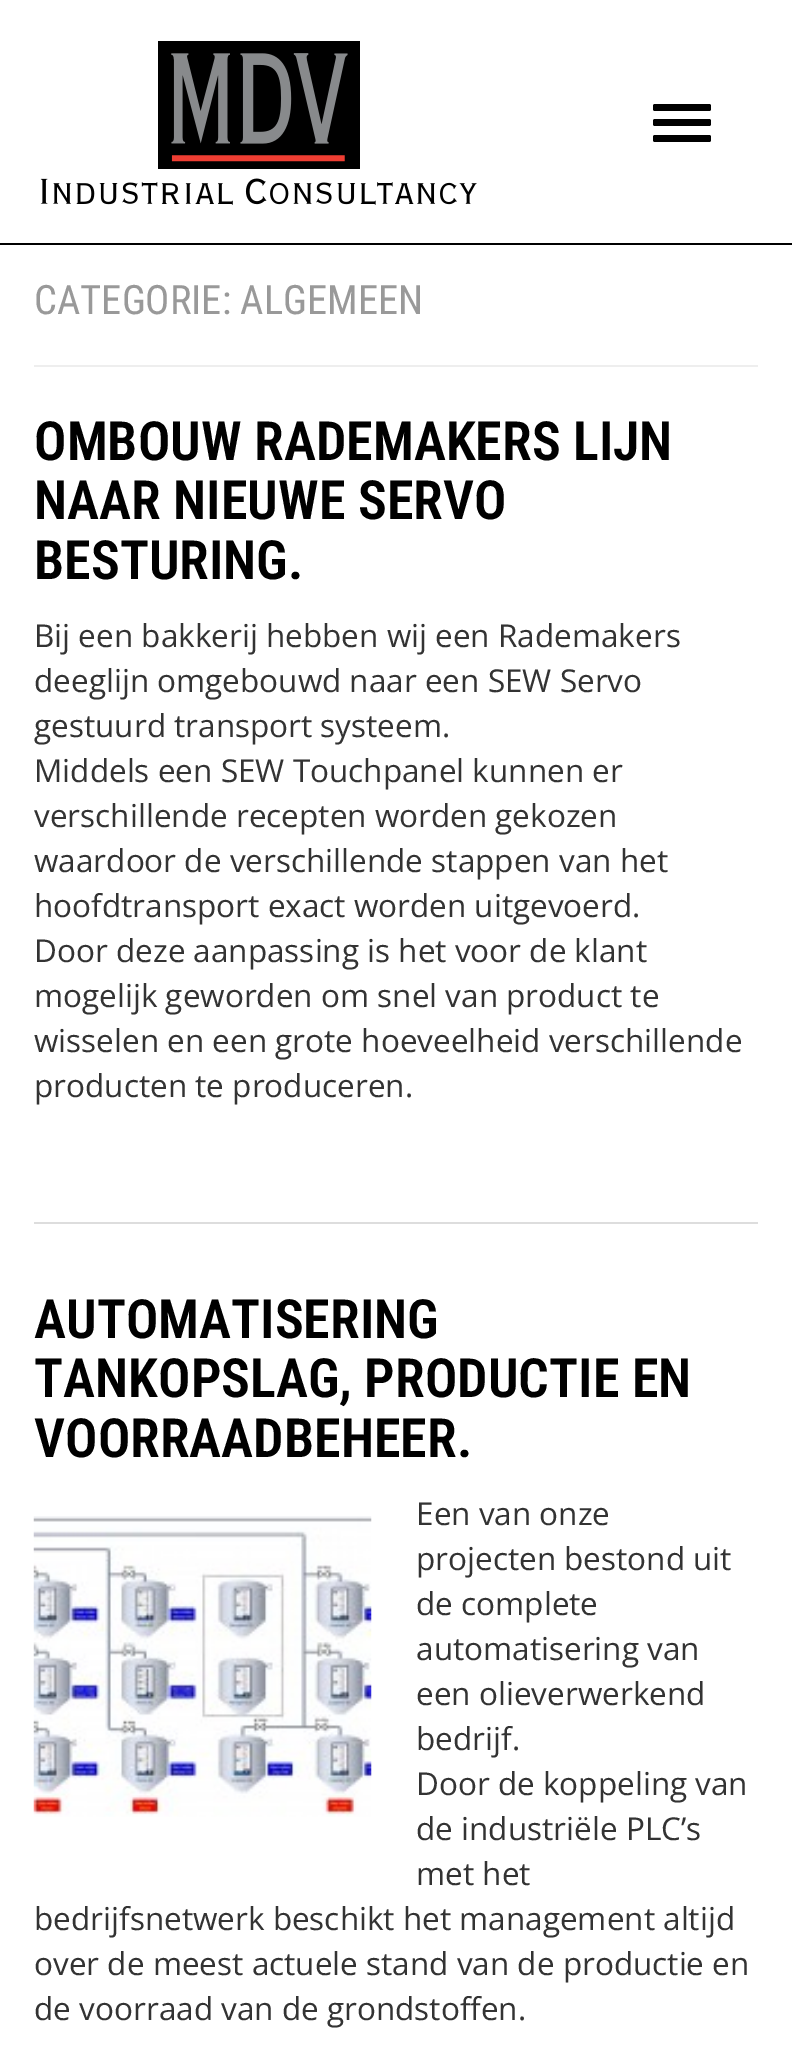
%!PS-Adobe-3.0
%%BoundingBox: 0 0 792 2070
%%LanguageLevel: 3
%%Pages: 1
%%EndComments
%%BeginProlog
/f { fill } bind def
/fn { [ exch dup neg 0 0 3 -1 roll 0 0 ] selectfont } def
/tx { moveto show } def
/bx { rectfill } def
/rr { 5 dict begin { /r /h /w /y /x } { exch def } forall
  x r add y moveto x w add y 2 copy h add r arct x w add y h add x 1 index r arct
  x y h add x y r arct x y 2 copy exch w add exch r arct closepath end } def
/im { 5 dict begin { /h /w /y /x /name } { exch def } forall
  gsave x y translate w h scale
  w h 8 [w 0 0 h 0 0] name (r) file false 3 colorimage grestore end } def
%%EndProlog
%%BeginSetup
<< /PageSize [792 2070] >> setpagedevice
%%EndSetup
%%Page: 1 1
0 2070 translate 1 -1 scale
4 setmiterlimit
1 setgray
0 0 792 2070 bx
0 setgray
0 243 792 2 bx
(image0.raw) 40 41 437 164 im
653 104 58 7 2 rr f
653 119 58 7 2 rr f
653 135 58 7 2 rr f
0.933 setgray
34 365 724 2 bx
/RobotoCondensed-Regular 40.5 fn
0.6 setgray
(CATEGORIE: ALGEMEEN) 34 314 tx
/RobotoCondensed-SemiBold 54 fn
0 setgray
(OMBOUW RADEMAKERS LIJN) 34 460 tx
(NAAR NIEUWE SERVO) 34 519 tx
(BESTURING.) 34 579 tx
/OpenSans-Regular 31.5 fn
0.2 setgray
(Bij een bakkerij hebben wij een Rademakers) 34 647 tx
(deeglijn omgebouwd naar een SEW Servo) 34 692 tx
(gestuurd transport systeem.) 34 737 tx
(Middels een SEW Touchpanel kunnen er) 34 782 tx
(verschillende recepten worden gekozen) 34 827 tx
(waardoor de verschillende stappen van het) 34 872 tx
(hoofdtransport exact worden uitgevoerd.) 34 917 tx
(Door deze aanpassing is het voor de klant) 34 962 tx
(mogelijk geworden om snel van product te) 34 1007 tx
(wisselen en een grote hoeveelheid verschillende) 34 1052 tx
(producten te produceren.) 34 1097 tx
0.867 setgray
34 1222 724 2 bx
/RobotoCondensed-SemiBold 54 fn
0 setgray
(AUTOMATISERING) 34 1338 tx
(TANKOPSLAG, PRODUCTIE EN) 34 1397 tx
(VOORRAADBEHEER.) 34 1457 tx
/OpenSans-Regular 31.5 fn
0.2 setgray
(Een van onze) 416 1525 tx
(projecten bestond uit) 416 1570 tx
(de complete) 416 1615 tx
(automatisering van) 416 1660 tx
(een olieverwerkend) 416 1705 tx
(bedrijf.) 416 1750 tx
(Door de koppeling van) 416 1795 tx
(de industriële PLC’s) 416 1840 tx
(met het) 416 1885 tx
(bedrijfsnetwerk beschikt het management altijd) 34 1930 tx
(over de meest actuele stand van de productie en) 34 1975 tx
(de voorraad van de grondstoffen.) 34 2020 tx
(image1.raw) 33 1516 339 301 im
showpage
%%EOF
